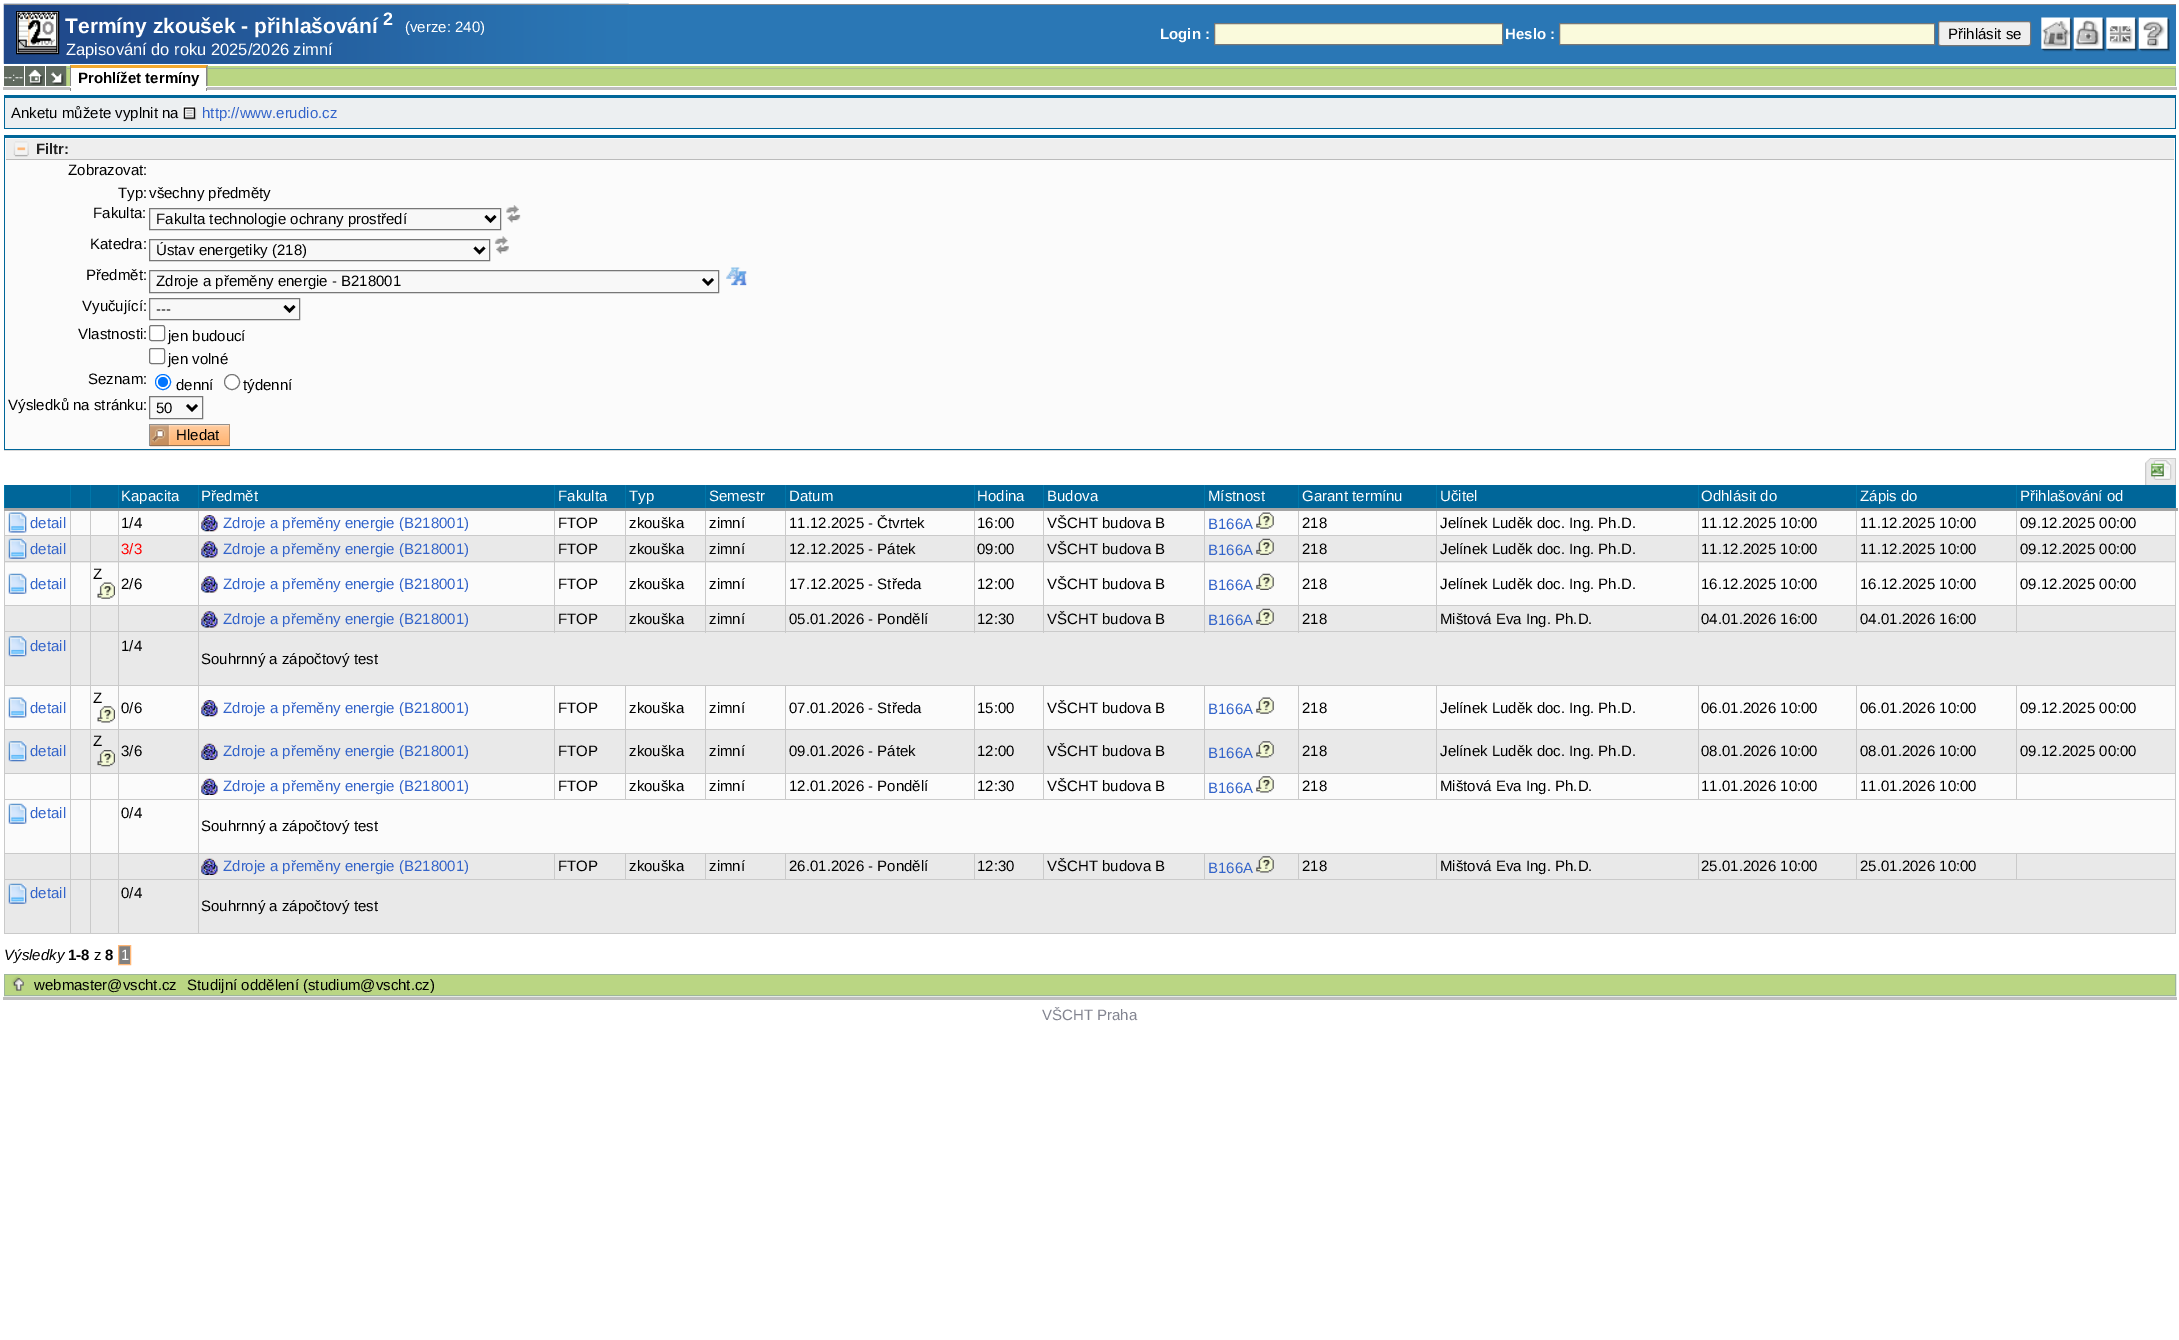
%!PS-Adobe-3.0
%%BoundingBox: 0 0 2179 1340
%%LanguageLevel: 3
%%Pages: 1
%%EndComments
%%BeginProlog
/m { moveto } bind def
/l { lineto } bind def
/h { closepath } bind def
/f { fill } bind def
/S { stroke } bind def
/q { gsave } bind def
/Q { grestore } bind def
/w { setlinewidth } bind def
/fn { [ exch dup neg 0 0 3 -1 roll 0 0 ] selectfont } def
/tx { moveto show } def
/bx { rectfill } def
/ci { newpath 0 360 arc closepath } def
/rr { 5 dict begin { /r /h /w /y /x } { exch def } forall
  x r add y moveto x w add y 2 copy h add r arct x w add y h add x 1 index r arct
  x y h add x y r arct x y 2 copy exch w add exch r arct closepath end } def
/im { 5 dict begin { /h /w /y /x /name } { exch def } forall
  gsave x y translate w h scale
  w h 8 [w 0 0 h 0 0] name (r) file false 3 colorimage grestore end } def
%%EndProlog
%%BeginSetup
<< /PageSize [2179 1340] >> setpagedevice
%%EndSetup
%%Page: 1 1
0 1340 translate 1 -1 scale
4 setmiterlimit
1 setgray
0 0 2179 1340 bx
0.165 0.467 0.71 setrgbcolor
4 5 2172 59 bx
(image0.raw) 3 3 626 61 im
0.533 setgray
4 4 2172 1 bx
1 setgray
16.5 11.5 m 58.5 11.5 l 58.5 53.5 l 16.5 53.5 l h q f Q
0 setgray
S
(image1.raw) 17 12 41 41 im
/LiberationSans-Bold 21 fn
1 setgray
(Termíny zkoušek - přihlašování) 65 33 tx
/LiberationSans-Bold 18 fn
(2) 383 25 tx
/LiberationSans-Regular 15 fn
(\(verze: 240\)) 405 32 tx
/LiberationSans-Regular 16.5 fn
(Zapisování do roku 2025/2026 zimní) 66 55 tx
/LiberationSans-Bold 15 fn
(Login :) 1160 39 tx
0.98 0.98 0.863 setrgbcolor
1214.5 23.5 m 1502.5 23.5 l 1502.5 44.5 l 1214.5 44.5 l h q f Q
0.467 setgray
S
1 setgray
(Heslo :) 1505 39 tx
0.98 0.98 0.863 setrgbcolor
1559.5 23.5 m 1934.5 23.5 l 1934.5 44.5 l 1559.5 44.5 l h q f Q
0.467 setgray
S
0.937 setgray
1938.5 21.5 92 24 2 rr q f Q
0.463 setgray
S
/LiberationSans-Regular 15 fn
0 setgray
(Přihlásit se) 1948 39 tx
(image2.raw) 2041 17 32 35 im
(image3.raw) 2073 17 32 35 im
(image4.raw) 2106 17 32 35 im
(image5.raw) 2138 17 32 35 im
0.729 0.839 0.514 setrgbcolor
66 65 2110 21 bx
0.38 0.42 0.376 setrgbcolor
4 66 20 20 bx
/LiberationSans-Regular 12 fn
1 setgray
(--:--) 4 81 tx
0.38 0.42 0.376 setrgbcolor
25 66 20 3 bx
(image6.raw) 25 69 20 17 im
46 66 20 20 bx
(image7.raw) 46 66 21 20 im
1 setgray
66 65 4 1 bx
0.62 0.714 0.608 setrgbcolor
66 68 4 1 bx
0.949 0.663 0.184 setrgbcolor
70 65 m 208 65 l 206 68 l 71 68 l h f
0.533 setgray
207.5 65 m 207.5 86 l 206 86 l 206 67.5 l h f
70 86 m 70 65 l 71 67.5 l 71 86 l h f
1 setgray
71 68 135 18 bx
/LiberationSans-Bold 15 fn
0 setgray
(Prohlížet termíny) 78 83 tx
1 setgray
208 65 1968 1 bx
0.62 0.714 0.608 setrgbcolor
208 68 1968 1 bx
2175 68 1 18 bx
0.745 setgray
3 87 67 3 bx
0.533 setgray
206 88 1 3 bx
70 88 1 3 bx
0.745 setgray
207 87 1970 3 bx
0.925 0.937 0.945 setrgbcolor
5 98 2170 30 bx
0 0.4 0.6 setrgbcolor
4 95 2172 3 bx
2175 95 1 34 bx
4 128 2172 1 bx
4 95 1 34 bx
/LiberationSans-Regular 15 fn
0 setgray
(Anketu můžete vyplnit na) 11 118 tx
(image8.raw) 182 106 15 14 im
0.2 0.392 0.792 setrgbcolor
(http://www.erudio.cz) 202 118 tx
0.984 setgray
5 138 2170 311 bx
0 0.4 0.6 setrgbcolor
4 135 2172 3 bx
2175 135 1 315 bx
4 449 2172 1 bx
4 135 1 315 bx
0.933 setgray
6 139 2168 20 bx
0.733 setgray
6 159 2168 1 bx
(image9.raw) 13 141 16 16 im
/LiberationSans-Bold 15 fn
0.133 setgray
(Filtr:) 36 154 tx
/LiberationSans-Regular 15 fn
0 setgray
(Zobrazovat:) 68 175 tx
(Typ:) 118 198 tx
(všechny předměty) 149 198 tx
(Fakulta:) 93 218 tx
0.973 setgray
149.5 208.5 m 500.5 208.5 l 500.5 229.5 l 149.5 229.5 l h q f Q
0.467 setgray
S
0 setgray
2.5 w
485.5 216 m 490.5 221 l 495.5 216 l S
(Fakulta technologie ochrany prostředí) 156 224 tx
(image10.raw) 506 205 15 18 im
(Katedra:) 90 249 tx
0.973 setgray
149.5 239.5 m 489.5 239.5 l 489.5 260.5 l 149.5 260.5 l h q f Q
0.467 setgray
1 w
S
0 setgray
2.5 w
474.5 247.5 m 479.5 252.5 l 484.5 247.5 l S
(Ústav energetiky \(218\)) 156 255 tx
(image11.raw) 494 236 15 18 im
(Předmět:) 86 280 tx
0.973 setgray
149.5 270.5 m 718.5 270.5 l 718.5 292.5 l 149.5 292.5 l h q f Q
0.467 setgray
1 w
S
0 setgray
2.5 w
703 279 m 708 284 l 713 279 l S
(Zdroje a přeměny energie - B218001) 156 286 tx
(image12.raw) 726 267 21 19 im
(Vyučující:) 82 311 tx
0.973 setgray
149.5 298.5 m 299.5 298.5 l 299.5 319.5 l 149.5 319.5 l h q f Q
0.467 setgray
1 w
S
0 setgray
2.5 w
284.5 306 m 289.5 311 l 294.5 306 l S
(---) 156 314 tx
(Vlastnosti:) 78 339 tx
1 setgray
149.5 325.5 15 15 2 rr q f Q
0.463 setgray
1 w
S
0 setgray
(jen budoucí) 168 341 tx
1 setgray
149.5 348.5 15 15 2 rr q f Q
0.463 setgray
S
0 setgray
(jen volné) 168 364 tx
(Seznam:) 88 384 tx
1 setgray
163 382 7.5 ci q f Q
0 0.459 1 setrgbcolor
S
163 382 5 ci f
0 setgray
(denní) 176 390 tx
1 setgray
232 382 7.5 ci q f Q
0.463 setgray
S
0 setgray
(týdenní) 243 390 tx
(Výsledků na stránku:) 8 410 tx
0.973 setgray
149.5 396.5 m 202.5 396.5 l 202.5 418.5 l 149.5 418.5 l h q f Q
0.467 setgray
S
0 setgray
2.5 w
187 405 m 192 410 l 197 405 l S
(50) 156 413 tx
(image13.raw) 150 425 80 22 im
0.565 setgray
149 424 81 1 bx
0.725 0.576 0.447 setrgbcolor
229 424 1 22 bx
0.561 0.439 0.337 setrgbcolor
149 445 81 1 bx
0.565 setgray
149 424 1 22 bx
0 setgray
(Hledat) 176 440 tx
0.855 setgray
4 450 2172 1 bx
(image14.raw) 2145 458 5 27 im
0.918 setgray
2150 459 25 26 bx
0.792 setgray
2150 458 26 1 bx
2175 458 1 27 bx
(image15.raw) 2151 460 21 20 im
0 0.4 0.6 setrgbcolor
5 485 2170 23 bx
0.792 setgray
4 535 2172 1 bx
0.914 setgray
5 536 2170 27 bx
0.792 setgray
4 561 2172 1 bx
4 605 2172 1 bx
0.914 setgray
199 606 1976 27 bx
71 606 19 27 bx
91 606 27 27 bx
5 606 65 27 bx
119 606 79 27 bx
0.792 setgray
4 631 2172 1 bx
4 685 2172 1 bx
4 729 2172 1 bx
4 773 2172 1 bx
4 799 2172 1 bx
4 853 2172 1 bx
4 879 2172 1 bx
2175 879 1 55 bx
4 933 2172 1 bx
4 879 1 55 bx
4 853 1 27 bx
4 799 1 55 bx
4 773 1 27 bx
4 729 1 45 bx
4 685 1 45 bx
4 631 1 55 bx
4 605 1 28 bx
4 561 1 45 bx
4 509 1 54 bx
0 0.467 0.667 setrgbcolor
4 485 1 25 bx
0.984 setgray
5 511 2170 24 bx
5 563 2170 42 bx
0.914 setgray
5 633 2170 52 bx
0.984 setgray
5 686 2170 43 bx
0.914 setgray
5 730 2170 43 bx
0.984 setgray
5 800 2170 53 bx
0.914 setgray
5 880 2170 53 bx
0.792 setgray
70 509 1 425 bx
0 0.467 0.667 setrgbcolor
70 485 1 25 bx
0.792 setgray
90 509 1 425 bx
0 0.467 0.667 setrgbcolor
90 485 1 25 bx
0.792 setgray
118 509 1 425 bx
0 0.467 0.667 setrgbcolor
118 485 1 25 bx
0.792 setgray
198 509 1 425 bx
0 0.467 0.667 setrgbcolor
198 485 1 25 bx
0.792 setgray
554 509 1 124 bx
0 0.467 0.667 setrgbcolor
554 485 1 25 bx
0.792 setgray
625 509 1 124 bx
0 0.467 0.667 setrgbcolor
625 485 1 25 bx
0.792 setgray
705 509 1 124 bx
0 0.467 0.667 setrgbcolor
705 485 1 25 bx
0.792 setgray
785 509 1 124 bx
0 0.467 0.667 setrgbcolor
785 485 1 25 bx
0.792 setgray
974 509 1 124 bx
0 0.467 0.667 setrgbcolor
974 485 1 25 bx
0.792 setgray
1043 509 1 124 bx
0 0.467 0.667 setrgbcolor
1043 485 1 25 bx
0.792 setgray
1204 509 1 124 bx
0 0.467 0.667 setrgbcolor
1204 485 1 25 bx
0.792 setgray
1298 509 1 124 bx
0 0.467 0.667 setrgbcolor
1298 485 1 25 bx
0.792 setgray
1436 509 1 124 bx
0 0.467 0.667 setrgbcolor
1436 485 1 25 bx
0.792 setgray
1698 509 1 124 bx
0 0.467 0.667 setrgbcolor
1698 485 1 25 bx
0.792 setgray
1856 509 1 124 bx
0 0.467 0.667 setrgbcolor
1856 485 1 25 bx
0.792 setgray
2175 853 1 27 bx
2175 799 1 55 bx
2175 773 1 27 bx
2175 729 1 45 bx
2175 685 1 45 bx
2175 631 1 55 bx
2175 605 1 28 bx
2175 561 1 45 bx
2175 509 1 54 bx
0 0.467 0.667 setrgbcolor
2175 485 1 25 bx
0.792 setgray
2016 509 1 124 bx
0 0.467 0.667 setrgbcolor
2016 485 1 25 bx
0.647 setgray
4 508 2174 3 bx
1 setgray
(Kapacita) 121 501 tx
(Předmět) 201 501 tx
(Fakulta) 558 501 tx
(Typ) 629 501 tx
(Semestr) 709 501 tx
(Datum) 789 501 tx
(Hodina) 977 501 tx
(Budova) 1047 501 tx
(Místnost) 1208 501 tx
(Garant termínu) 1302 501 tx
(Učitel) 1440 501 tx
(Odhlásit do) 1701 501 tx
(Zápis do) 1860 501 tx
(Přihlašování od) 2020 501 tx
(image16.raw) 8 512 19 21 im
0.2 0.392 0.792 setrgbcolor
(detail) 30 528 tx
0 setgray
(1/4) 121 528 tx
(image17.raw) 201 515 17 17 im
0.2 0.392 0.792 setrgbcolor
(Zdroje a přeměny energie \(B218001\)) 223 528 tx
0 setgray
(FTOP) 558 528 tx
(zkouška) 629 528 tx
(zimní) 709 528 tx
(11.12.2025 - Čtvrtek) 789 528 tx
(16:00) 977 528 tx
(VŠCHT budova B) 1047 528 tx
0.2 0.392 0.792 setrgbcolor
(B166A) 1208 529 tx
(image18.raw) 1256 512 18 17 im
0 setgray
(218) 1302 528 tx
(Jelínek Luděk doc. Ing. Ph.D.) 1440 528 tx
(11.12.2025 10:00) 1701 528 tx
(11.12.2025 10:00) 1860 528 tx
(09.12.2025 00:00) 2020 528 tx
(image19.raw) 8 538 19 21 im
0.2 0.392 0.792 setrgbcolor
(detail) 30 554 tx
1 0 0 setrgbcolor
(3/3) 121 554 tx
(image20.raw) 201 541 17 17 im
0.2 0.392 0.792 setrgbcolor
(Zdroje a přeměny energie \(B218001\)) 223 554 tx
0 setgray
(FTOP) 558 554 tx
(zkouška) 629 554 tx
(zimní) 709 554 tx
(12.12.2025 - Pátek) 789 554 tx
(09:00) 977 554 tx
(VŠCHT budova B) 1047 554 tx
0.2 0.392 0.792 setrgbcolor
(B166A) 1208 555 tx
(image21.raw) 1256 538 18 17 im
0 setgray
(218) 1302 554 tx
(Jelínek Luděk doc. Ing. Ph.D.) 1440 554 tx
(11.12.2025 10:00) 1701 554 tx
(11.12.2025 10:00) 1860 554 tx
(09.12.2025 00:00) 2020 554 tx
(Z) 93 579 tx
(image22.raw) 97 582 18 17 im
(image23.raw) 8 573 19 21 im
0.2 0.392 0.792 setrgbcolor
(detail) 30 589 tx
0 setgray
(2/6) 121 589 tx
(image24.raw) 201 576 17 17 im
0.2 0.392 0.792 setrgbcolor
(Zdroje a přeměny energie \(B218001\)) 223 589 tx
0 setgray
(FTOP) 558 589 tx
(zkouška) 629 589 tx
(zimní) 709 589 tx
(17.12.2025 - Středa) 789 589 tx
(12:00) 977 589 tx
(VŠCHT budova B) 1047 589 tx
0.2 0.392 0.792 setrgbcolor
(B166A) 1208 590 tx
(image25.raw) 1256 573 18 17 im
0 setgray
(218) 1302 589 tx
(Jelínek Luděk doc. Ing. Ph.D.) 1440 589 tx
(16.12.2025 10:00) 1701 589 tx
(16.12.2025 10:00) 1860 589 tx
(09.12.2025 00:00) 2020 589 tx
(image20.raw) 201 611 17 17 im
0.2 0.392 0.792 setrgbcolor
(Zdroje a přeměny energie \(B218001\)) 223 624 tx
0 setgray
(FTOP) 558 624 tx
(zkouška) 629 624 tx
(zimní) 709 624 tx
(05.01.2026 - Pondělí) 789 624 tx
(12:30) 977 624 tx
(VŠCHT budova B) 1047 624 tx
0.2 0.392 0.792 setrgbcolor
(B166A) 1208 625 tx
(image21.raw) 1256 608 18 17 im
0 setgray
(218) 1302 624 tx
(Mištová Eva Ing. Ph.D.) 1440 624 tx
(04.01.2026 16:00) 1701 624 tx
(04.01.2026 16:00) 1860 624 tx
(image26.raw) 8 636 19 21 im
0.2 0.392 0.792 setrgbcolor
(detail) 30 651 tx
0 setgray
(1/4) 121 651 tx
(Souhrnný a zápočtový test) 201 664 tx
(Z) 93 703 tx
(image27.raw) 97 706 18 17 im
(image28.raw) 8 697 19 21 im
0.2 0.392 0.792 setrgbcolor
(detail) 30 713 tx
0 setgray
(0/6) 121 713 tx
(image17.raw) 201 700 17 17 im
0.2 0.392 0.792 setrgbcolor
(Zdroje a přeměny energie \(B218001\)) 223 713 tx
0 setgray
(FTOP) 558 713 tx
(zkouška) 629 713 tx
(zimní) 709 713 tx
(07.01.2026 - Středa) 789 713 tx
(15:00) 977 713 tx
(VŠCHT budova B) 1047 713 tx
0.2 0.392 0.792 setrgbcolor
(B166A) 1208 714 tx
(image29.raw) 1256 697 18 17 im
0 setgray
(218) 1302 713 tx
(Jelínek Luděk doc. Ing. Ph.D.) 1440 713 tx
(06.01.2026 10:00) 1701 713 tx
(06.01.2026 10:00) 1860 713 tx
(09.12.2025 00:00) 2020 713 tx
(Z) 93 746 tx
(image30.raw) 97 750 18 17 im
(image26.raw) 8 741 19 21 im
0.2 0.392 0.792 setrgbcolor
(detail) 30 756 tx
0 setgray
(3/6) 121 756 tx
(image31.raw) 201 743 17 17 im
0.2 0.392 0.792 setrgbcolor
(Zdroje a přeměny energie \(B218001\)) 223 756 tx
0 setgray
(FTOP) 558 756 tx
(zkouška) 629 756 tx
(zimní) 709 756 tx
(09.01.2026 - Pátek) 789 756 tx
(12:00) 977 756 tx
(VŠCHT budova B) 1047 756 tx
0.2 0.392 0.792 setrgbcolor
(B166A) 1208 758 tx
(image32.raw) 1256 741 18 17 im
0 setgray
(218) 1302 756 tx
(Jelínek Luděk doc. Ing. Ph.D.) 1440 756 tx
(08.01.2026 10:00) 1701 756 tx
(08.01.2026 10:00) 1860 756 tx
(09.12.2025 00:00) 2020 756 tx
0.984 setgray
199 774 1976 25 bx
71 774 19 25 bx
91 774 27 25 bx
(image33.raw) 201 778 17 17 im
0.2 0.392 0.792 setrgbcolor
(Zdroje a přeměny energie \(B218001\)) 223 791 tx
0.792 setgray
554 685 1 115 bx
0 setgray
(FTOP) 558 791 tx
0.792 setgray
625 685 1 115 bx
0 setgray
(zkouška) 629 791 tx
0.792 setgray
705 685 1 115 bx
0 setgray
(zimní) 709 791 tx
0.792 setgray
785 685 1 115 bx
0 setgray
(12.01.2026 - Pondělí) 789 791 tx
0.792 setgray
974 685 1 115 bx
0 setgray
(12:30) 977 791 tx
0.792 setgray
1043 685 1 115 bx
0 setgray
(VŠCHT budova B) 1047 791 tx
0.792 setgray
1204 685 1 115 bx
0.2 0.392 0.792 setrgbcolor
(B166A) 1208 793 tx
(image34.raw) 1256 776 18 17 im
0.792 setgray
1298 685 1 115 bx
0 setgray
(218) 1302 791 tx
0.792 setgray
1436 685 1 115 bx
0 setgray
(Mištová Eva Ing. Ph.D.) 1440 791 tx
0.792 setgray
1698 685 1 115 bx
0 setgray
(11.01.2026 10:00) 1701 791 tx
0.792 setgray
1856 685 1 115 bx
0 setgray
(11.01.2026 10:00) 1860 791 tx
0.792 setgray
2016 685 1 115 bx
0.984 setgray
5 774 65 25 bx
(image35.raw) 8 803 19 21 im
0.2 0.392 0.792 setrgbcolor
(detail) 30 818 tx
0.984 setgray
119 774 79 25 bx
0 setgray
(0/4) 121 818 tx
(Souhrnný a zápočtový test) 201 831 tx
0.914 setgray
199 854 1976 25 bx
71 854 19 25 bx
91 854 27 25 bx
(image31.raw) 201 858 17 17 im
0.2 0.392 0.792 setrgbcolor
(Zdroje a přeměny energie \(B218001\)) 223 871 tx
0.792 setgray
554 853 1 27 bx
0 setgray
(FTOP) 558 871 tx
0.792 setgray
625 853 1 27 bx
0 setgray
(zkouška) 629 871 tx
0.792 setgray
705 853 1 27 bx
0 setgray
(zimní) 709 871 tx
0.792 setgray
785 853 1 27 bx
0 setgray
(26.01.2026 - Pondělí) 789 871 tx
0.792 setgray
974 853 1 27 bx
0 setgray
(12:30) 977 871 tx
0.792 setgray
1043 853 1 27 bx
0 setgray
(VŠCHT budova B) 1047 871 tx
0.792 setgray
1204 853 1 27 bx
0.2 0.392 0.792 setrgbcolor
(B166A) 1208 873 tx
(image32.raw) 1256 856 18 17 im
0.792 setgray
1298 853 1 27 bx
0 setgray
(218) 1302 871 tx
0.792 setgray
1436 853 1 27 bx
0 setgray
(Mištová Eva Ing. Ph.D.) 1440 871 tx
0.792 setgray
1698 853 1 27 bx
0 setgray
(25.01.2026 10:00) 1701 871 tx
0.792 setgray
1856 853 1 27 bx
0 setgray
(25.01.2026 10:00) 1860 871 tx
0.792 setgray
2016 853 1 27 bx
0.914 setgray
5 854 65 25 bx
(image19.raw) 8 883 19 21 im
0.2 0.392 0.792 setrgbcolor
(detail) 30 898 tx
0.914 setgray
119 854 79 25 bx
0 setgray
(0/4) 121 898 tx
(Souhrnný a zápočtový test) 201 911 tx
/LiberationSans-Italic 15 fn
(Výsledky) 4 960 tx
/LiberationSans-Bold 15 fn
(1-8) 68 960 tx
/LiberationSans-Regular 15 fn
(z) 94 960 tx
/LiberationSans-Bold 15 fn
(8) 105 960 tx
0.502 setgray
118.5 945.5 m 130.5 945.5 l 130.5 964.5 l 118.5 964.5 l h q f Q
1 0.714 0.459 setrgbcolor
1 w
S
/LiberationSans-Regular 15 fn
1 setgray
(1) 121 960 tx
0.62 0.714 0.608 setrgbcolor
4.5 974.5 2171 21 rectstroke
0.729 0.839 0.514 setrgbcolor
5 975 2170 20 bx
(image36.raw) 11 976 13 15 im
0 setgray
(webmaster@vscht.cz) 34 990 tx
(Studijní oddělení \(studium@vscht.cz\)) 187 990 tx
0.745 setgray
3 997 2174 3 bx
0.51 0.518 0.565 setrgbcolor
(VŠCHT Praha) 1042 1020 tx
showpage
%%EOF
